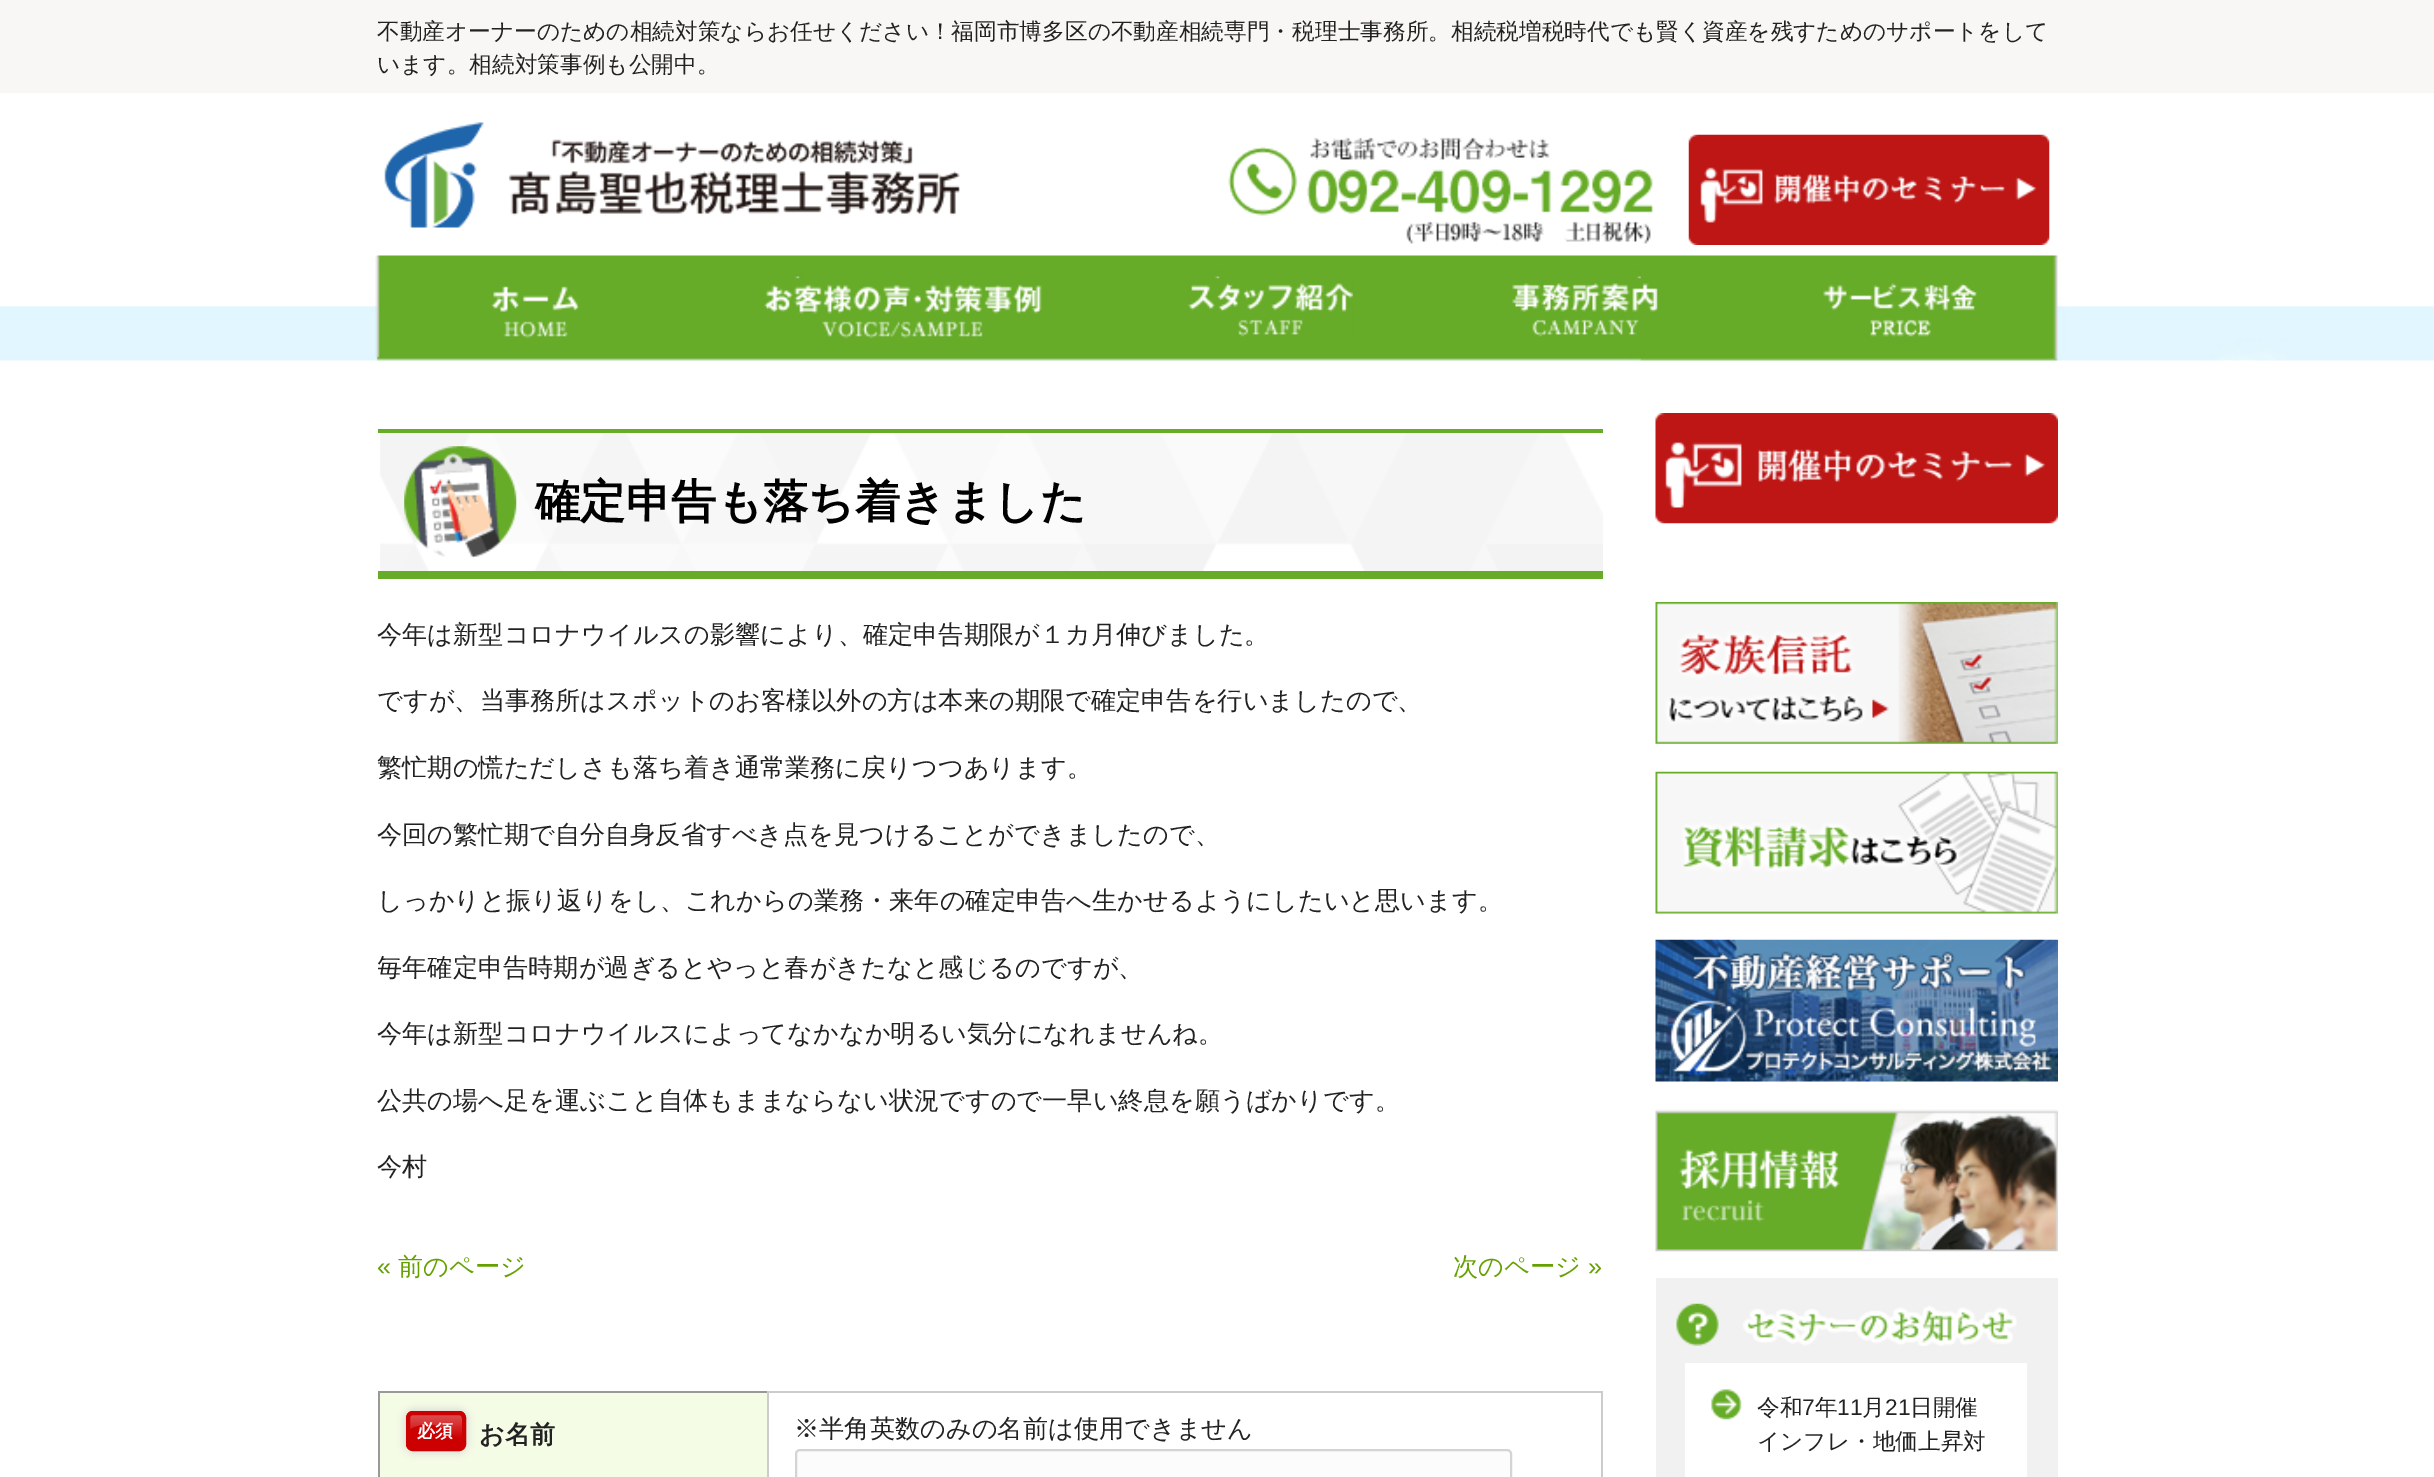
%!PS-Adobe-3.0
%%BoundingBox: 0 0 2434 1477
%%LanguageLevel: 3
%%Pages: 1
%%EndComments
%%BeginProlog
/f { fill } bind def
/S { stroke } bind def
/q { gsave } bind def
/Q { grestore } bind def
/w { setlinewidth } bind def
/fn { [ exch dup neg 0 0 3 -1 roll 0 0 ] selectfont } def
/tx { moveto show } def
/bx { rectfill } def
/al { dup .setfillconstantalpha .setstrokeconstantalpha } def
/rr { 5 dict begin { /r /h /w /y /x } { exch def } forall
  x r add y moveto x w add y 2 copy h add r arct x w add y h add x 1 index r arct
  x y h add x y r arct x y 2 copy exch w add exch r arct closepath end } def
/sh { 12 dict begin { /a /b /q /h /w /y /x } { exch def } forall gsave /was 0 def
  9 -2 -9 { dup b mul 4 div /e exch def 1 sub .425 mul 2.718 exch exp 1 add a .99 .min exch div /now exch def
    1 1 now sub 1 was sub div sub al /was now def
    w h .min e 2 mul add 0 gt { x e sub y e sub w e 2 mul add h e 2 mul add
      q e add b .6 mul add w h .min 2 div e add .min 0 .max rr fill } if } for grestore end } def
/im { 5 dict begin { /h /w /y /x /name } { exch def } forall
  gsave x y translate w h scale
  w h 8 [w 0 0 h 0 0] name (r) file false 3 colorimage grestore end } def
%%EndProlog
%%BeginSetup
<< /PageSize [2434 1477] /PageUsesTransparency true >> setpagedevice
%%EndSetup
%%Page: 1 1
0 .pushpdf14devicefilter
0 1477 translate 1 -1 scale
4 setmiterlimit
1 setgray
0 0 2434 1477 bx
0.976 0.969 0.961 setrgbcolor
0 0 2434 93 bx
/WenQuanYiZenHei-Medium 22.68 fn
0.133 setgray
(不動産オーナーのための相続対策ならお任せください！福岡市博多区の不動産相続専門・税理士事務所。相続税増税時代でも賢く資産を残すためのサポートをして) 377 39 tx
(います。相続対策事例も公開中。) 377 72 tx
(image0.raw) 384 122 576 106 im
(image1.raw) 1228 137 425 107 im
(image2.raw) 1688 134 362 111 im
(image3.raw) 0 255 2434 106 im
(image4.raw) 491 286 89 53 im
(image5.raw) 764 278 278 62 im
(image6.raw) 1188 278 165 62 im
(image7.raw) 1512 278 146 62 im
(image8.raw) 1823 283 155 54 im
(image9.raw) 380 433 1223 138 im
0.4 0.675 0.157 setrgbcolor
378 429 1225 4 bx
378 571 1225 8 bx
(image10.raw) 404 446 113 112 im
/WenQuanYiZenHei-Bold 45.4 fn
0 setgray
(確定申告も落ち着きました) 535 517 tx
/WenQuanYiZenHei-Medium 25.2 fn
0.133 setgray
(今年は新型コロナウイルスの影響により、確定申告期限が１カ月伸びました。) 377 643 tx
(ですが、当事務所はスポットのお客様以外の方は本来の期限で確定申告を行いましたので、) 377 709 tx
(繁忙期の慌ただしさも落ち着き通常業務に戻りつつあります。) 377 776 tx
(今回の繁忙期で自分自身反省すべき点を見つけることができましたので、) 377 843 tx
(しっかりと振り返りをし、これからの業務・来年の確定申告へ生かせるようにしたいと思います。) 377 909 tx
q
378 361 1680 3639 rectclip
(毎年確定申告時期が過ぎるとやっと春がきたなと感じるのですが、) 377 976 tx
Q
(今年は新型コロナウイルスによってなかなか明るい気分になれませんね。) 377 1042 tx
(公共の場へ足を運ぶこと自体もままならない状況ですので一早い終息を願うばかりです。) 377 1109 tx
(今村) 377 1175 tx
/LiberationSans-Regular 25.2 fn
0.392 0.631 0 setrgbcolor
(«) 377 1275 tx
/WenQuanYiZenHei-Medium 25.2 fn
(前のページ) 398 1275 tx
(次のページ) 1453 1275 tx
/LiberationSans-Regular 25.2 fn
(») 1588 1275 tx
0.6 setgray
378 1391 389 2 bx
0.8 setgray
1601 1391 2 86 bx
0.961 0.988 0.902 setrgbcolor
380 1393 387 84 bx
0.6 setgray
378 1391 2 86 bx
0.8 setgray
406 1411 60 40 7 4.5 1 sh
0.8 0 0 setrgbcolor
406 1411 60 40 7 rr f
(image11.raw) 406 1414 60 37 im
4 w
408 1413 56 36 5 rr S
/WenQuanYiZenHei-Bold 18 fn
1 setgray
(必須) 417 1437 tx
/WenQuanYiZenHei-Bold 25.2 fn
0.133 setgray
(お名前) 479 1443 tx
0.8 setgray
767 1391 836 2 bx
767 1391 2 86 bx
/WenQuanYiZenHei-Medium 25.2 fn
0.133 setgray
(※半角英数のみの名前は使用できません) 794 1437 tx
0.988 setgray
796 1450 715 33 4 rr q f Q
0.831 0.831 0.843 setrgbcolor
2 w
S
(image12.raw) 1655 413 403 111 im
(image13.raw) 1655 602 403 142 im
(image14.raw) 1655 771 403 143 im
(image15.raw) 1655 939 403 143 im
(image16.raw) 1655 1109 403 143 im
0.945 setgray
1656 1278 402 199 bx
(image17.raw) 1676 1303 341 43 im
1 setgray
1685 1363 342 114 bx
(image18.raw) 1711 1389 31 31 im
/WenQuanYiZenHei-Medium 22.68 fn
0.133 setgray
(令和) 1757 1415 tx
/LiberationSans-Regular 22.68 fn
(7) 1802 1415 tx
/WenQuanYiZenHei-Medium 22.68 fn
(年) 1815 1415 tx
/LiberationSans-Regular 22.68 fn
(11) 1837 1415 tx
/WenQuanYiZenHei-Medium 22.68 fn
(月) 1862 1415 tx
/LiberationSans-Regular 22.68 fn
(21) 1885 1415 tx
/WenQuanYiZenHei-Medium 22.68 fn
(日開催) 1910 1415 tx
(インフレ・地価上昇対) 1757 1449 tx
.poppdf14devicefilter showpage
%%EOF
